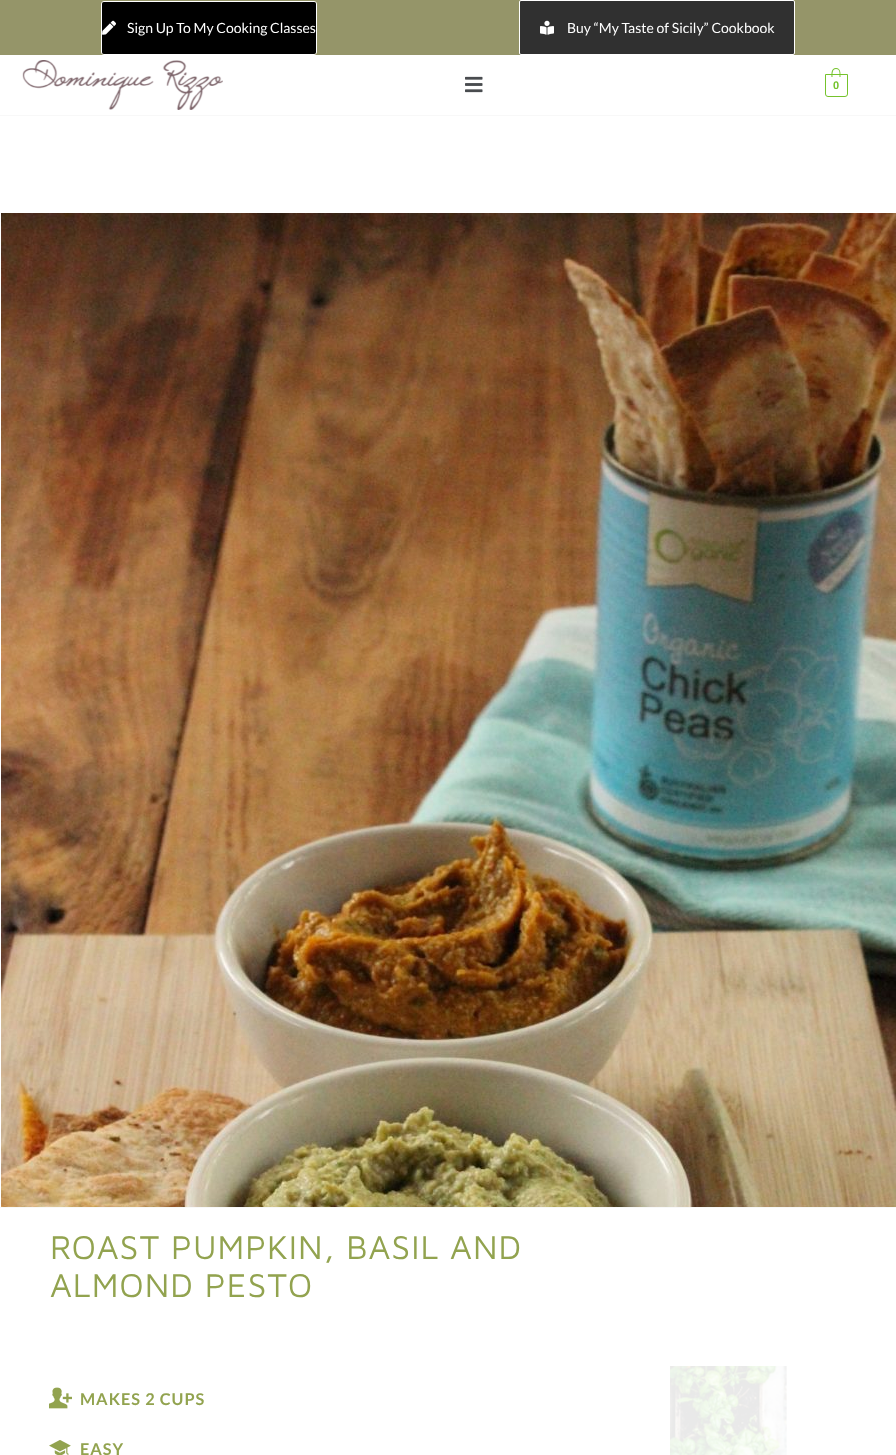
<!DOCTYPE html>
<meta charset="utf-8">
<style>body { margin: 0 } canvas { display: block }</style>
<canvas id="canvas" width="896" height="1455"></canvas>
<script type="module">
  const canvas = document.getElementById("canvas");
  const ctx = canvas.getContext("2d");
  ctx.miterLimit = 4;
  ctx.fontKerning = "normal";
  async function loadImage(src) {
    const img = new Image();
    img.src = src;
    await img.decode();
    return img;
  }

  ctx.fillStyle = "#ffffff";
  ctx.fillRect(0, 0, 896, 1455);
  ctx.fillStyle = "#959569";
  ctx.fillRect(0, 0, 896, 55);
  ctx.beginPath();
  ctx.roundRect(101.5, 1.5, 215, 53, 2.5);
  ctx.strokeStyle = "#ffffff";
  ctx.stroke();
  ctx.fillStyle = "#000000";
  ctx.beginPath();
  ctx.roundRect(102, 2, 214, 52, 2);
  ctx.fill();
  ctx.drawImage(await loadImage("img1.png"), 102, 20, 14, 15);
  ctx.font = "14px Lato";
  ctx.fillStyle = "#ffffff";
  ctx.fillText("Sign Up To My Cooking Classes", 127, 33);
  ctx.fillStyle = "#303030";
  ctx.beginPath();
  ctx.roundRect(519.5, 0.5, 275, 54, 1.5);
  ctx.fill();
  ctx.stroke();
  ctx.drawImage(await loadImage("img2.png"), 540, 20, 14, 15);
  ctx.fillStyle = "#ffffff";
  ctx.fillText("Buy “My Taste of Sicily” Cookbook", 567, 33);
  ctx.drawImage(await loadImage("img3.png"), 22, 60, 201, 50);
  ctx.drawImage(await loadImage("img4.png"), 465, 76, 18, 17);
  ctx.beginPath();
  ctx.roundRect(825.5, 74.5, 22, 22, [0, 0, 2.5, 2.5]);
  ctx.strokeStyle = "#75c32c";
  ctx.stroke();
  ctx.fillStyle = "#75c32c";
  ctx.beginPath();
  ctx.moveTo(836, 68);
  ctx.bezierCurveTo(841, 68, 840.5, 73.5, 840.5, 77);
  ctx.lineTo(831.5, 77);
  ctx.bezierCurveTo(831.5, 73.5, 831, 68, 836, 68);
  ctx.closePath();
  ctx.moveTo(836, 69);
  ctx.bezierCurveTo(840.5, 69, 839.5, 74, 839.5, 77);
  ctx.lineTo(832.5, 77);
  ctx.bezierCurveTo(832.5, 74, 832, 69, 836, 69);
  ctx.closePath();
  ctx.fill("evenodd");
  ctx.font = "bold 11px Liberation Sans";
  ctx.fillText("0", 833, 89);
  ctx.drawImage(await loadImage("img5.png"), 1, 213, 895, 994);
  ctx.fillStyle = "#f8f8f8";
  ctx.fillRect(0, 115, 896, 1);
  ctx.fillRect(0, 1207, 896, 1);
  ctx.letterSpacing = "1px";
  ctx.font = "34px Maven Pro";
  ctx.fillStyle = "#92a34f";
  ctx.fillText("ROAST PUMPKIN, BASIL AND", 50, 1259);
  ctx.fillText("ALMOND PESTO", 50, 1297);
  ctx.drawImage(await loadImage("img6.png"), 49, 1387, 23, 22);
  ctx.font = "bold 16.25px Lato";
  ctx.fillText("MAKES 2 CUPS", 80, 1405);
  ctx.drawImage(await loadImage("img7.png"), 49, 1440, 22, 15);
  ctx.fillText("EASY", 80, 1455);
  ctx.drawImage(await loadImage("img8.png"), 670, 1366, 117, 89);
</script>
